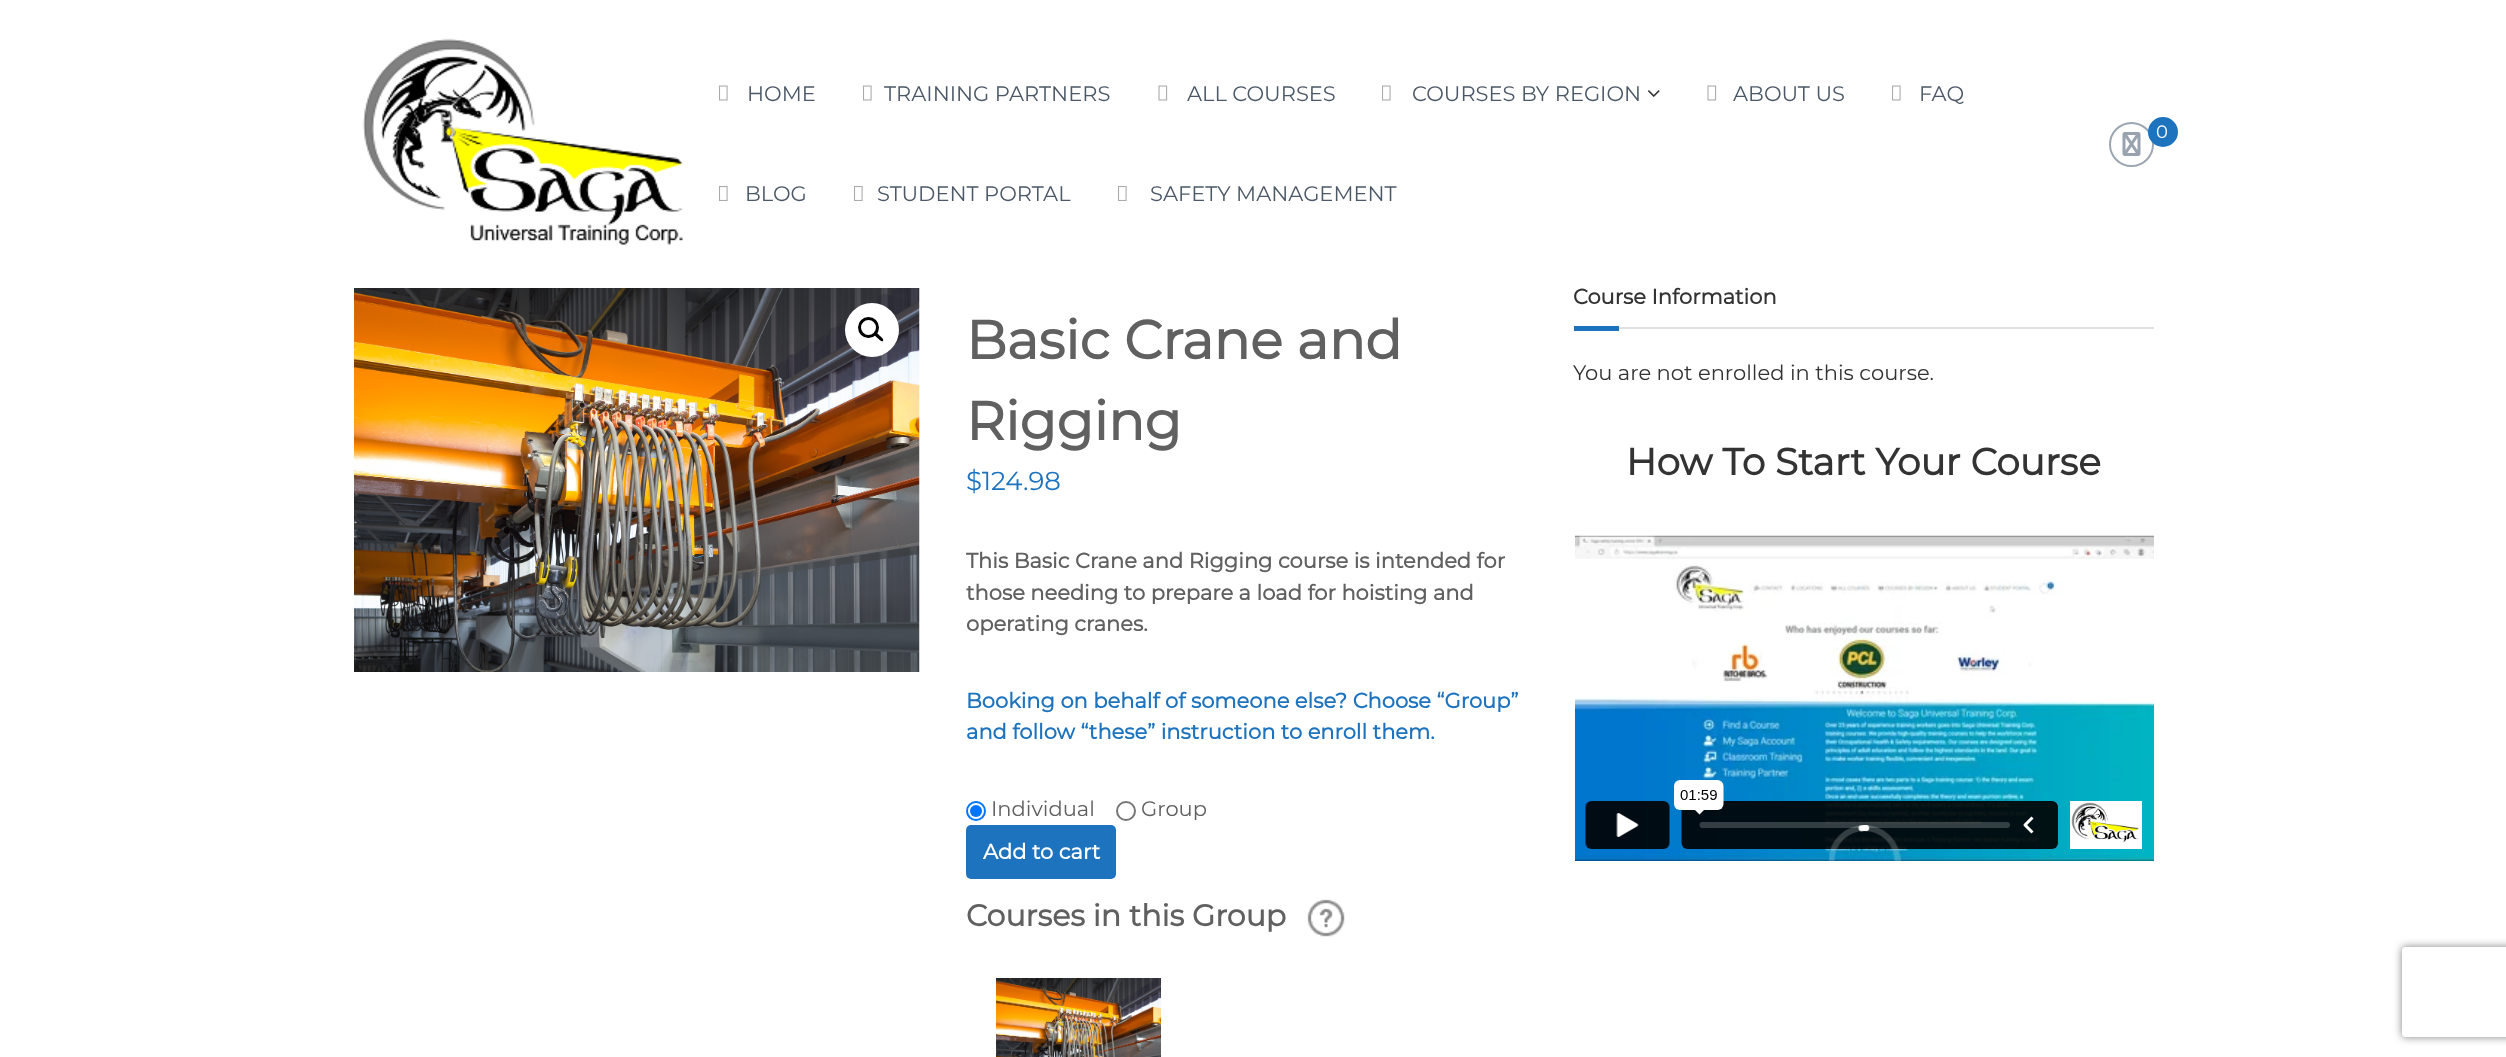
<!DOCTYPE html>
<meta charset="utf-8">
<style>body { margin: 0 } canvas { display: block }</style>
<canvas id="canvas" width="2506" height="1057"></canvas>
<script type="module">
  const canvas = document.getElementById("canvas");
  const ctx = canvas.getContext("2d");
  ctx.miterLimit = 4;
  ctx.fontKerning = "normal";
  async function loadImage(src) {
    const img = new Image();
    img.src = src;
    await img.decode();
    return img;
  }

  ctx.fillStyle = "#ffffff";
  ctx.fillRect(0, 0, 2506, 1057);
  ctx.drawImage(await loadImage("img1.png"), 362, 38, 321, 207);
  ctx.drawImage(await loadImage("img2.png"), 719, 85, 9, 16);
  ctx.font = "21px Montserrat";
  ctx.fillStyle = "#4c5867";
  ctx.fillText("HOME", 747, 101);
  ctx.drawImage(await loadImage("img2.png"), 863, 85, 9, 16);
  ctx.fillText("TRAINING PARTNERS", 884, 101);
  ctx.drawImage(await loadImage("img3.png"), 1158, 85, 10, 16);
  ctx.fillText("ALL COURSES", 1187, 101);
  ctx.drawImage(await loadImage("img2.png"), 1382, 85, 9, 16);
  ctx.fillText("COURSES BY REGION", 1412, 101);
  ctx.drawImage(await loadImage("img4.png"), 1648, 90, 12, 7);
  ctx.drawImage(await loadImage("img3.png"), 1707, 85, 10, 16);
  ctx.fillText("ABOUT US", 1733, 101);
  ctx.drawImage(await loadImage("img2.png"), 1892, 85, 9, 16);
  ctx.fillText("FAQ", 1919, 101);
  ctx.drawImage(await loadImage("img5.png"), 719, 186, 9, 15);
  ctx.fillText("BLOG", 745, 201);
  ctx.drawImage(await loadImage("img5.png"), 854, 186, 9, 15);
  ctx.fillText("STUDENT PORTAL", 877, 201);
  ctx.drawImage(await loadImage("img5.png"), 1118, 186, 9, 15);
  ctx.fillText("SAFETY MANAGEMENT", 1150, 201);
  ctx.beginPath();
  ctx.arc(2131.5, 144.5, 21.5, 0, Math.PI * 2);
  ctx.strokeStyle = "#9ca6b2";
  ctx.lineWidth = 2;
  ctx.stroke();
  ctx.drawImage(await loadImage("img6.png"), 2122, 132, 19, 24);
  ctx.fillStyle = "#1e73be";
  ctx.beginPath();
  ctx.arc(2163, 132, 15, 0, Math.PI * 2);
  ctx.fill();
  ctx.font = "18px Montserrat";
  ctx.fillStyle = "#ffffff";
  ctx.fillText("0", 2156, 138);
  ctx.drawImage(await loadImage("img7.png"), 354, 288, 566, 384);
  ctx.beginPath();
  ctx.arc(872, 330, 27, 0, Math.PI * 2);
  ctx.fill();
  ctx.beginPath();
  ctx.arc(868.5, 327.5, 9, 0, Math.PI * 2);
  ctx.strokeStyle = "#000000";
  ctx.lineWidth = 3;
  ctx.stroke();
  ctx.fillStyle = "#000000";
  ctx.beginPath();
  ctx.moveTo(874.5, 332.5);
  ctx.bezierCurveTo(876, 331, 879, 335, 879.5, 335.5);
  ctx.bezierCurveTo(880.5, 336.5, 884.5, 339.5, 883, 341);
  ctx.bezierCurveTo(881, 342.5, 878.5, 338.5, 877.5, 338);
  ctx.bezierCurveTo(876.5, 337, 872.5, 334, 874.5, 332.5);
  ctx.closePath();
  ctx.fill();
  ctx.font = "bold 54px Montserrat";
  ctx.fillStyle = "#606060";
  ctx.fillText("Basic Crane and", 966, 359);
  ctx.fillText("Rigging", 966, 440);
  ctx.font = "26px Montserrat";
  ctx.fillStyle = "#1e73be";
  ctx.fillText("$124.98", 966, 490);
  ctx.font = "bold 21px Montserrat";
  ctx.fillStyle = "#606060";
  ctx.fillText("This Basic Crane and Rigging course is intended for", 966, 568);
  ctx.fillText("those needing to prepare a load for hoisting and", 966, 600);
  ctx.fillText("operating cranes.", 966, 631);
  ctx.fillStyle = "#1e73be";
  ctx.fillText("Booking on behalf of someone else? Choose “Group”", 966, 708);
  ctx.fillText("and follow “these” instruction to enroll them.", 966, 739);
  ctx.beginPath();
  ctx.arc(976, 811, 9, 0, Math.PI * 2);
  ctx.strokeStyle = "#0075ff";
  ctx.lineWidth = 2;
  ctx.stroke();
  ctx.fillStyle = "#0075ff";
  ctx.beginPath();
  ctx.arc(976, 811, 6, 0, Math.PI * 2);
  ctx.fill();
  ctx.font = "21px Montserrat";
  ctx.fillStyle = "#606060";
  ctx.fillText("Individual", 991, 816);
  ctx.beginPath();
  ctx.arc(1126, 811, 9, 0, Math.PI * 2);
  ctx.strokeStyle = "#767676";
  ctx.stroke();
  ctx.fillText("Group", 1141, 816);
  ctx.fillStyle = "#1e73be";
  ctx.beginPath();
  ctx.roundRect(966, 825, 150, 54, 5);
  ctx.fill();
  ctx.font = "bold 21px Montserrat";
  ctx.fillStyle = "#ffffff";
  ctx.fillText("Add to cart", 983, 859);
  ctx.font = "bold 30px Montserrat";
  ctx.fillStyle = "#606060";
  ctx.fillText("Courses in this Group", 966, 926);
  ctx.drawImage(await loadImage("img8.png"), 1307, 899, 38, 38);
  ctx.drawImage(await loadImage("img9.png"), 996, 978, 165, 79);
  ctx.font = "bold 21px Montserrat";
  ctx.fillStyle = "#333333";
  ctx.fillText("Course Information", 1573, 304);
  ctx.fillStyle = "#1e73be";
  ctx.fillRect(1574, 326, 45, 5);
  ctx.fillStyle = "#e1e1e1";
  ctx.fillRect(1619, 327, 535, 2);
  ctx.font = "21px Montserrat";
  ctx.fillStyle = "#333333";
  ctx.fillText("You are not enrolled in this course.", 1573, 380);
  ctx.font = "bold 37.5px Montserrat";
  ctx.fillText("How To Start Your Course", 1626, 475);
  ctx.drawImage(await loadImage("img10.png"), 1575, 535, 579, 326);
  ctx.save();
  ctx.beginPath();
  ctx.moveTo(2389, 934);
  ctx.lineTo(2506, 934);
  ctx.lineTo(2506, 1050);
  ctx.lineTo(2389, 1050);
  ctx.closePath();
  ctx.moveTo(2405, 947);
  ctx.lineTo(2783, 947);
  ctx.bezierCurveTo(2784.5, 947, 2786, 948.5, 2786, 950);
  ctx.lineTo(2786, 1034);
  ctx.bezierCurveTo(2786, 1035.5, 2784.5, 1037, 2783, 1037);
  ctx.lineTo(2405, 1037);
  ctx.bezierCurveTo(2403.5, 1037, 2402, 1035.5, 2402, 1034);
  ctx.lineTo(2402, 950);
  ctx.bezierCurveTo(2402, 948.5, 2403.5, 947, 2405, 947);
  ctx.closePath();
  ctx.clip("evenodd");
  ctx.fillStyle = "#808080";
  ctx.filter = "blur(4px)";
  ctx.beginPath();
  ctx.roundRect(2402, 947, 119, 90, 3);
  ctx.fill();
  ctx.filter = "none";
  ctx.restore();
</script>
